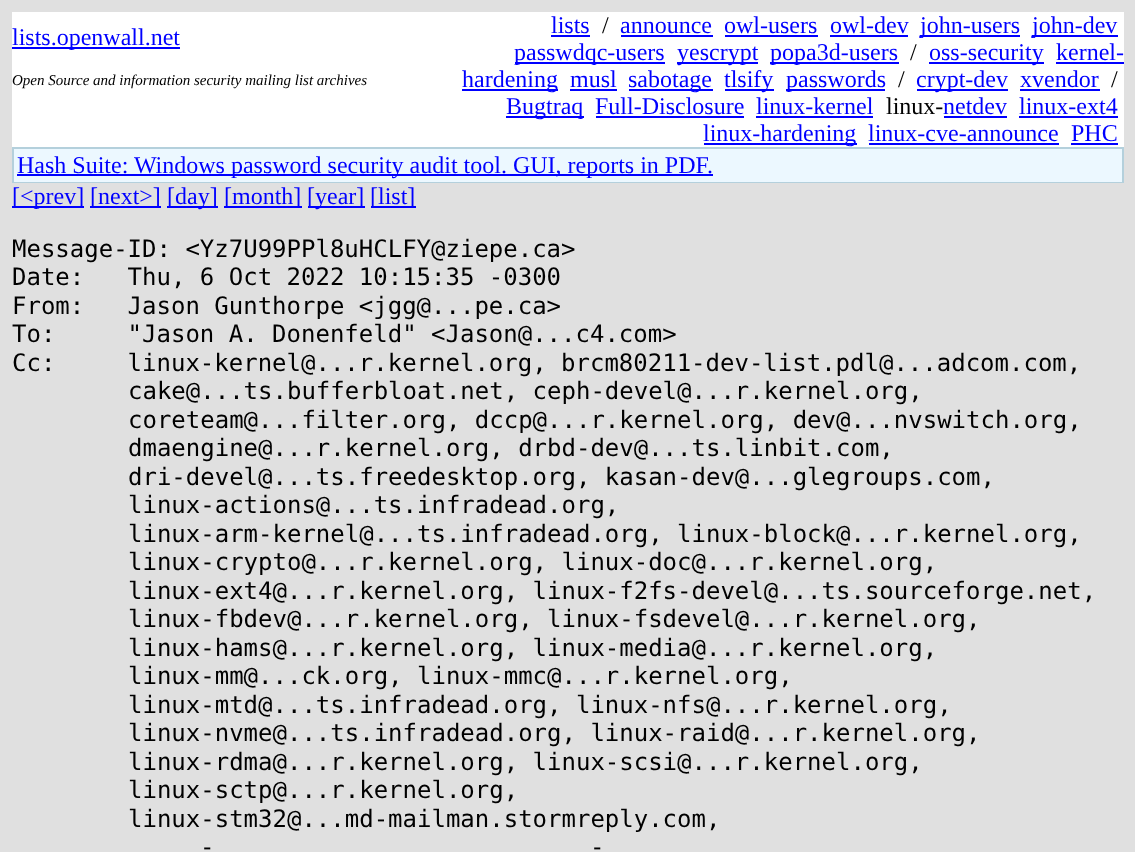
<!DOCTYPE html>
<meta charset="utf-8">
<style>body { margin: 0 } canvas { display: block }</style>
<canvas id="canvas" width="1135" height="852"></canvas>
<script type="module">
  const canvas = document.getElementById("canvas");
  const ctx = canvas.getContext("2d");
  ctx.miterLimit = 4;
  ctx.fontKerning = "normal";

  ctx.fillStyle = "#e0e0e0";
  ctx.fillRect(0, 0, 1135, 852);
  ctx.fillStyle = "#ffffff";
  ctx.fillRect(12, 12, 1112, 135);
  ctx.fillStyle = "#0000ff";
  ctx.fillRect(12, 47, 168, 2);
  ctx.font = "24px Liberation Serif";
  ctx.fillText("lists.openwall.net", 12, 45);
  ctx.fillText("lists", 551, 33);
  ctx.fillRect(551, 35, 39, 2);
  ctx.fillStyle = "#000000";
  ctx.fillText("/", 602, 33);
  ctx.fillStyle = "#0000ff";
  ctx.fillText("announce", 620, 33);
  ctx.fillRect(621, 35, 92, 2);
  ctx.fillText("owl-users", 724, 33);
  ctx.fillRect(725, 35, 93, 2);
  ctx.fillText("owl-dev", 830, 33);
  ctx.fillRect(830, 35, 78, 2);
  ctx.fillRect(920, 35, 100, 2);
  ctx.fillText("john-users", 920, 33);
  ctx.fillRect(1032, 35, 86, 2);
  ctx.fillText("john-dev", 1032, 33);
  ctx.fillRect(515, 62, 150, 2);
  ctx.fillText("passwdqc-users", 514, 60);
  ctx.fillRect(677, 62, 81, 2);
  ctx.fillText("yescrypt", 677, 60);
  ctx.fillRect(770, 62, 129, 2);
  ctx.fillText("popa3d-users", 770, 60);
  ctx.fillStyle = "#000000";
  ctx.fillText("/", 910, 60);
  ctx.fillStyle = "#0000ff";
  ctx.fillRect(929, 62, 115, 2);
  ctx.fillText("oss-security", 929, 60);
  ctx.fillText("kernel-", 1056, 60);
  ctx.fillRect(1056, 62, 68, 2);
  ctx.fillRect(462, 89, 96, 2);
  ctx.fillText("hardening", 462, 87);
  ctx.fillText("musl", 570, 87);
  ctx.fillRect(570, 89, 47, 2);
  ctx.fillRect(629, 89, 84, 2);
  ctx.fillText("sabotage", 628, 87);
  ctx.fillRect(725, 89, 49, 2);
  ctx.fillText("tlsify", 724, 87);
  ctx.fillRect(786, 89, 99, 2);
  ctx.fillText("passwords", 786, 87);
  ctx.fillStyle = "#000000";
  ctx.fillText("/", 898, 87);
  ctx.fillStyle = "#0000ff";
  ctx.fillRect(917, 89, 91, 2);
  ctx.fillText("crypt-dev", 916, 87);
  ctx.fillText("xvendor", 1020, 87);
  ctx.fillRect(1020, 89, 80, 2);
  ctx.fillStyle = "#000000";
  ctx.fillText("/", 1111, 87);
  ctx.fillStyle = "#0000ff";
  ctx.fillRect(506, 116, 78, 2);
  ctx.fillText("Bugtraq", 506, 114);
  ctx.fillText("Full-Disclosure", 595, 114);
  ctx.fillRect(596, 116, 148, 2);
  ctx.fillText("linux-kernel", 756, 114);
  ctx.fillRect(756, 116, 117, 2);
  ctx.fillStyle = "#000000";
  ctx.fillText("linux-", 886, 114);
  ctx.fillStyle = "#0000ff";
  ctx.fillText("netdev", 943, 114);
  ctx.fillRect(944, 116, 63, 2);
  ctx.fillText("linux-ext4", 1019, 114);
  ctx.fillRect(1019, 116, 99, 2);
  ctx.fillRect(704, 143, 153, 2);
  ctx.fillText("linux-hardening", 703, 141);
  ctx.fillText("linux-cve-announce", 868, 141);
  ctx.fillRect(869, 143, 190, 2);
  ctx.fillText("PHC", 1071, 141);
  ctx.fillRect(1071, 143, 47, 2);
  ctx.font = "italic 15px Liberation Serif";
  ctx.fillStyle = "#000000";
  ctx.fillText("Open Source and information security mailing list archives", 12, 85);
  ctx.fillStyle = "#b4d0dc";
  ctx.fillRect(12, 147, 1112, 36);
  ctx.fillStyle = "#ecf8ff";
  ctx.fillRect(14, 149, 1108, 33);
  ctx.fillStyle = "#0000ff";
  ctx.fillRect(17, 174, 696, 2);
  ctx.font = "24px Liberation Serif";
  ctx.fillText("Hash Suite: Windows password security audit tool. GUI, reports in PDF.", 17, 173);
  ctx.fillRect(12, 206, 72, 2);
  ctx.fillText("[<prev]", 12, 204);
  ctx.fillRect(90, 206, 71, 2);
  ctx.fillText("[next>]", 90, 204);
  ctx.fillRect(167, 206, 51, 2);
  ctx.fillText("[day]", 167, 204);
  ctx.fillRect(224, 206, 78, 2);
  ctx.fillText("[month]", 224, 204);
  ctx.fillRect(308, 206, 57, 2);
  ctx.fillText("[year]", 307, 204);
  ctx.fillRect(371, 206, 45, 2);
  ctx.fillText("[list]", 370, 204);
  ctx.font = "24px DejaVu Sans Mono";
  ctx.fillStyle = "#000000";
  ctx.fillText("Message-ID: <Yz7U99PPl8uHCLFY@ziepe.ca>", 12, 257);
  ctx.fillText("Date:   Thu, 6 Oct 2022 10:15:35 -0300", 12, 285);
  ctx.fillText("From:   Jason Gunthorpe <jgg@...pe.ca>", 12, 314);
  ctx.fillText("To:     \"Jason A. Donenfeld\" <Jason@...c4.com>", 12, 342);
  ctx.fillText("Cc:     linux-kernel@...r.kernel.org, brcm80211-dev-list.pdl@...adcom.com,", 12, 371);
  ctx.fillText("cake@...ts.bufferbloat.net, ceph-devel@...r.kernel.org,", 128, 399);
  ctx.fillText("coreteam@...filter.org, dccp@...r.kernel.org, dev@...nvswitch.org,", 128, 428);
  ctx.fillText("dmaengine@...r.kernel.org, drbd-dev@...ts.linbit.com,", 128, 456);
  ctx.fillText("dri-devel@...ts.freedesktop.org, kasan-dev@...glegroups.com,", 128, 485);
  ctx.fillText("linux-actions@...ts.infradead.org,", 128, 513);
  ctx.fillText("linux-arm-kernel@...ts.infradead.org, linux-block@...r.kernel.org,", 128, 542);
  ctx.fillText("linux-crypto@...r.kernel.org, linux-doc@...r.kernel.org,", 128, 570);
  ctx.fillText("linux-ext4@...r.kernel.org, linux-f2fs-devel@...ts.sourceforge.net,", 128, 599);
  ctx.fillText("linux-fbdev@...r.kernel.org, linux-fsdevel@...r.kernel.org,", 128, 627);
  ctx.fillText("linux-hams@...r.kernel.org, linux-media@...r.kernel.org,", 128, 656);
  ctx.fillText("linux-mm@...ck.org, linux-mmc@...r.kernel.org,", 128, 684);
  ctx.fillText("linux-mtd@...ts.infradead.org, linux-nfs@...r.kernel.org,", 128, 713);
  ctx.fillText("linux-nvme@...ts.infradead.org, linux-raid@...r.kernel.org,", 128, 741);
  ctx.fillText("linux-rdma@...r.kernel.org, linux-scsi@...r.kernel.org,", 128, 770);
  ctx.fillText("linux-sctp@...r.kernel.org,", 128, 798);
  ctx.fillText("linux-stm32@...md-mailman.stormreply.com,", 128, 827);
  ctx.fillText("-", 200, 855);
  ctx.fillText("-", 590, 855);
</script>
